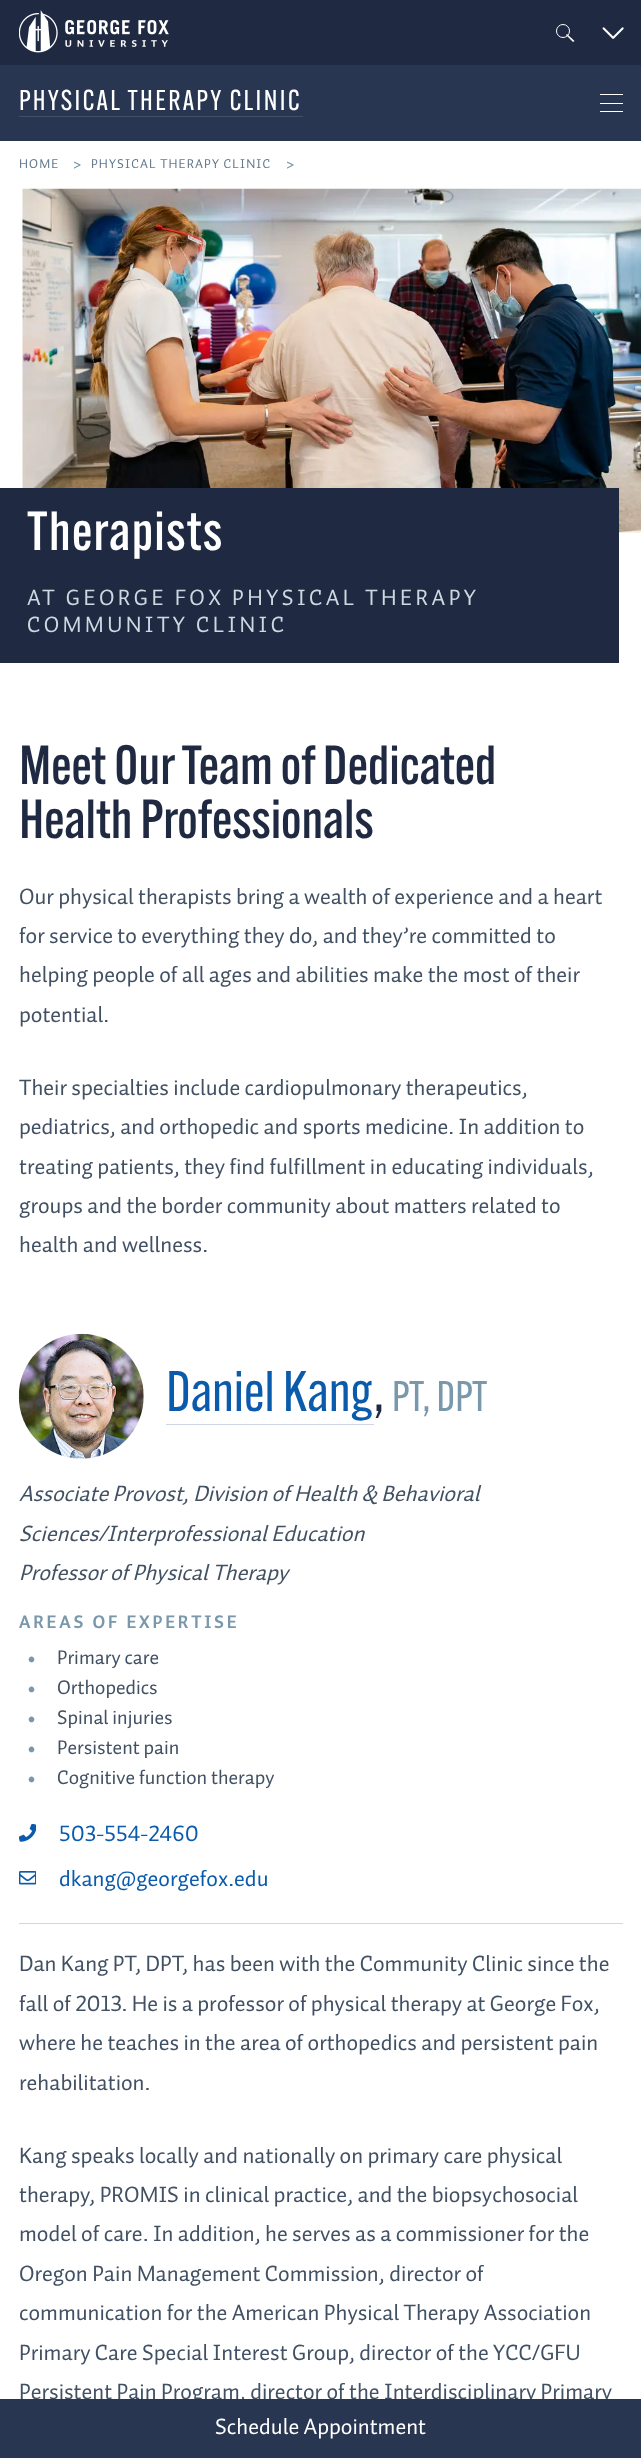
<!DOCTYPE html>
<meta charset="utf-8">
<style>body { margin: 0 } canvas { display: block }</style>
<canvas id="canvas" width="641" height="2458"></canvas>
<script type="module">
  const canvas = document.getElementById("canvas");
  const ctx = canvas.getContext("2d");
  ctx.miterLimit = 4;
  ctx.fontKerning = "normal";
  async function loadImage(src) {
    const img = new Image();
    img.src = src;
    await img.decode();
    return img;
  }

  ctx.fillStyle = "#ffffff";
  ctx.fillRect(0, 0, 641, 2458);
  ctx.fillStyle = "#1f2a42";
  ctx.fillRect(0, 0, 641, 65);
  ctx.drawImage(await loadImage("img1.png"), 19, 10, 150, 43);
  ctx.beginPath();
  ctx.arc(563, 31, 6.5, 0, Math.PI * 2);
  ctx.strokeStyle = "#ffffff";
  ctx.stroke();
  ctx.fillStyle = "#ffffff";
  ctx.beginPath();
  ctx.moveTo(567, 34);
  ctx.lineTo(574.5, 41);
  ctx.lineTo(573, 42);
  ctx.lineTo(566, 35);
  ctx.closePath();
  ctx.fill();
  ctx.drawImage(await loadImage("img2.png"), 602, 27, 22, 12);
  ctx.fillStyle = "#293652";
  ctx.fillRect(0, 65, 641, 76);
  ctx.letterSpacing = "2.25px";
  ctx.font = "28.1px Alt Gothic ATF";
  ctx.fillStyle = "#ffffff";
  ctx.fillText("PHYSICAL THERAPY CLINIC", 19, 110);
  ctx.fillStyle = "#415063";
  ctx.fillRect(19, 116, 284, 1);
  ctx.fillStyle = "#ffffff";
  ctx.fillRect(600, 94, 23, 1);
  ctx.fillRect(600, 103, 23, 1);
  ctx.fillRect(600, 111, 23, 1);
  ctx.letterSpacing = "1.1px";
  ctx.font = "13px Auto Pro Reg";
  ctx.fillStyle = "#62788c";
  ctx.fillText("HOME", 19, 168);
  ctx.letterSpacing = "-4px";
  ctx.font = "17px Auto Pro Reg";
  ctx.fillStyle = "#7998ac";
  ctx.fillText(">", 73, 169);
  ctx.letterSpacing = "1.1px";
  ctx.font = "13px Auto Pro Reg";
  ctx.fillStyle = "#62788c";
  ctx.fillText("PHYSICAL THERAPY CLINIC", 91, 168);
  ctx.letterSpacing = "-4px";
  ctx.font = "17px Auto Pro Reg";
  ctx.fillStyle = "#7998ac";
  ctx.fillText(">", 286, 169);
  ctx.drawImage(await loadImage("img3.png"), 22, 188, 619, 345);
  ctx.fillStyle = "#1f2a42";
  ctx.fillRect(0, 488, 619, 175);
  ctx.letterSpacing = "1.4px";
  ctx.font = "500 54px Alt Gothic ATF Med";
  ctx.fillStyle = "#ffffff";
  ctx.fillText("Therapists", 27, 550);
  ctx.letterSpacing = "3.4px";
  ctx.font = "22.5px Auto Pro Reg";
  ctx.fillStyle = "#cfd8e2";
  ctx.fillText("AT GEORGE FOX PHYSICAL THERAPY", 27, 605);
  ctx.fillText("COMMUNITY CLINIC", 27, 632);
  ctx.letterSpacing = "0px";
  ctx.font = "500 54px Alt Gothic ATF Med";
  ctx.fillStyle = "#1f2a42";
  ctx.fillText("Meet Our Team of Dedicated", 19, 784);
  ctx.fillText("Health Professionals", 19, 838);
  ctx.font = "22.5px Auto Pro Reg";
  ctx.fillStyle = "#415063";
  ctx.fillText("Our physical therapists bring a wealth of experience and a heart", 19, 904);
  ctx.fillText("for service to everything they do, and they’re committed to", 19, 943);
  ctx.fillText("helping people of all ages and abilities make the most of their", 19, 982);
  ctx.fillText("potential.", 19, 1022);
  ctx.fillText("Their specialties include cardiopulmonary therapeutics,", 19, 1095);
  ctx.fillText("pediatrics, and orthopedic and sports medicine. In addition to", 19, 1134);
  ctx.fillText("treating patients, they find fulfillment in educating individuals,", 19, 1174);
  ctx.fillText("groups and the border community about matters related to", 19, 1213);
  ctx.fillText("health and wellness.", 19, 1252);
  ctx.fillStyle = "#cfd8e2";
  ctx.fillRect(19, 1923, 604, 1);
  ctx.drawImage(await loadImage("img4.png"), 18, 1333, 126, 126);
  ctx.font = "56px Alt Gothic ATF";
  ctx.fillStyle = "#0b5bac";
  ctx.fillText("Daniel Kang", 166, 1411);
  ctx.fillStyle = "#cfd8e2";
  ctx.fillRect(166, 1424, 208, 1);
  ctx.fillStyle = "#1f2a42";
  ctx.fillText(",", 374, 1411);
  ctx.font = "42px Alt Gothic ATF";
  ctx.fillStyle = "#7998ac";
  ctx.fillText("PT, DPT", 392, 1411);
  ctx.font = "italic 22.5px Auto Pro Reg";
  ctx.fillStyle = "#415063";
  ctx.fillText("Associate Provost, Division of Health & Behavioral", 19, 1501);
  ctx.fillText("Sciences/Interprofessional Education", 19, 1541);
  ctx.fillText("Professor of Physical Therapy", 19, 1580);
  ctx.letterSpacing = "2.75px";
  ctx.font = "bold 18.25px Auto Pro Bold";
  ctx.fillStyle = "#7998ac";
  ctx.fillText("AREAS OF EXPERTISE", 19, 1628);
  ctx.letterSpacing = "0px";
  ctx.font = "bold 20px Liberation Sans";
  ctx.fillText("•", 28, 1666);
  ctx.font = "20px Auto Pro Reg";
  ctx.fillStyle = "#415063";
  ctx.fillText("Primary care", 57, 1664);
  ctx.font = "bold 20px Liberation Sans";
  ctx.fillStyle = "#7998ac";
  ctx.fillText("•", 28, 1696);
  ctx.font = "20px Auto Pro Reg";
  ctx.fillStyle = "#415063";
  ctx.fillText("Orthopedics", 57, 1694);
  ctx.font = "bold 20px Liberation Sans";
  ctx.fillStyle = "#7998ac";
  ctx.fillText("•", 28, 1726);
  ctx.font = "20px Auto Pro Reg";
  ctx.fillStyle = "#415063";
  ctx.fillText("Spinal injuries", 57, 1724);
  ctx.font = "bold 20px Liberation Sans";
  ctx.fillStyle = "#7998ac";
  ctx.fillText("•", 28, 1756);
  ctx.font = "20px Auto Pro Reg";
  ctx.fillStyle = "#415063";
  ctx.fillText("Persistent pain", 57, 1754);
  ctx.font = "bold 20px Liberation Sans";
  ctx.fillStyle = "#7998ac";
  ctx.fillText("•", 28, 1786);
  ctx.font = "20px Auto Pro Reg";
  ctx.fillStyle = "#415063";
  ctx.fillText("Cognitive function therapy", 57, 1784);
  ctx.drawImage(await loadImage("img5.png"), 19, 1824, 17, 18);
  ctx.font = "22.5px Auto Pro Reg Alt";
  ctx.fillStyle = "#0b5bac";
  ctx.fillText("503-554-2460", 59, 1841);
  ctx.drawImage(await loadImage("img6.png"), 19, 1871, 17, 14);
  ctx.font = "22.5px Auto Pro Reg";
  ctx.fillText("dkang@georgefox.edu", 59, 1886);
  ctx.fillStyle = "#415063";
  ctx.fillText("Dan Kang PT, DPT, has been with the Community Clinic since the", 19, 1971);
  ctx.font = "22.5px Auto Pro Reg Alt";
  ctx.fillText("fall of 2013. He is a professor of physical therapy at George Fox,", 19, 2011);
  ctx.font = "22.5px Auto Pro Reg";
  ctx.fillText("where he teaches in the area of orthopedics and persistent pain", 19, 2050);
  ctx.fillText("rehabilitation.", 19, 2090);
  ctx.fillText("Kang speaks locally and nationally on primary care physical", 19, 2163);
  ctx.fillText("therapy, PROMIS in clinical practice, and the biopsychosocial", 19, 2202);
  ctx.fillText("model of care. In addition, he serves as a commissioner for the", 19, 2241);
  ctx.fillText("Oregon Pain Management Commission, director of", 19, 2281);
  ctx.fillText("communication for the American Physical Therapy Association", 19, 2320);
  ctx.fillText("Primary Care Special Interest Group, director of the YCC/GFU", 19, 2360);
  ctx.fillText("Persistent Pain Program, director of the Interdisciplinary Primary", 19, 2399);
  ctx.fillStyle = "#293652";
  ctx.fillRect(0, 2399, 641, 59);
  ctx.fillStyle = "#ffffff";
  ctx.fillText("Schedule Appointment", 215, 2434);
</script>
